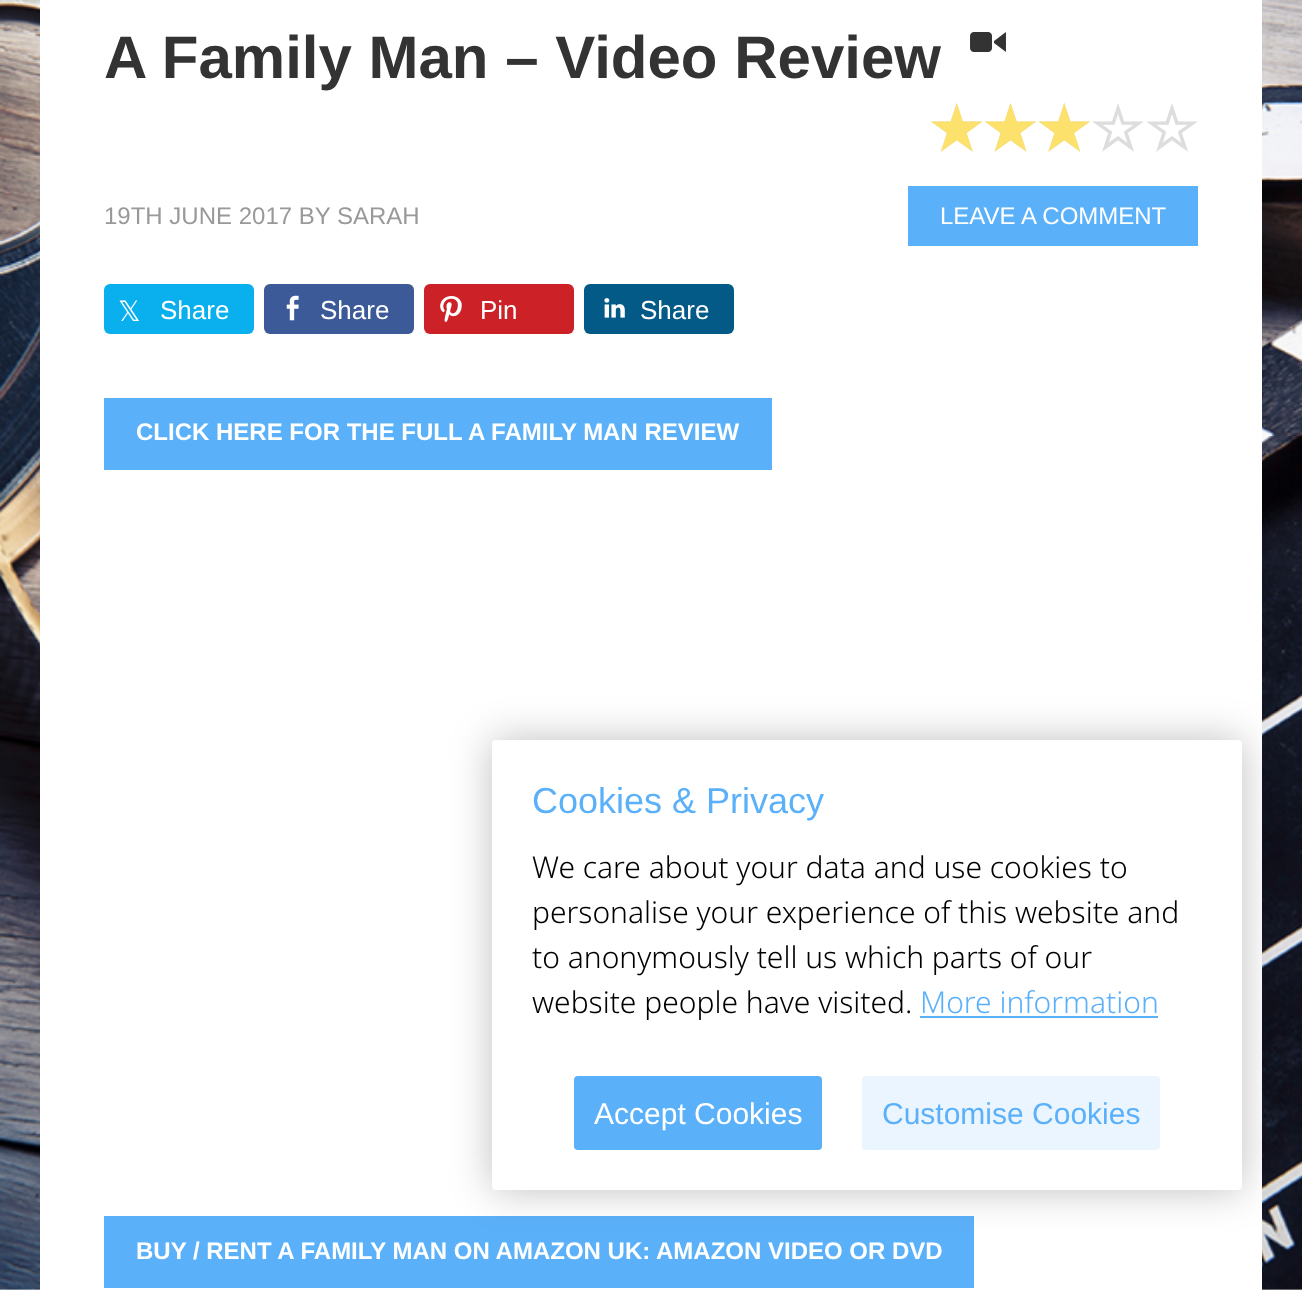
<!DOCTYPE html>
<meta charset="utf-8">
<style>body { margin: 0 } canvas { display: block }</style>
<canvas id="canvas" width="1302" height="1290"></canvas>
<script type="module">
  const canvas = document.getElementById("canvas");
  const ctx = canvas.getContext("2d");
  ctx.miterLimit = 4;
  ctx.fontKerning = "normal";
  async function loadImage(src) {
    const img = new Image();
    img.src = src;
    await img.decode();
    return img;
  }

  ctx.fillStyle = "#ffffff";
  ctx.fillRect(0, 0, 1302, 1290);
  ctx.drawImage(await loadImage("img1.png"), 0, 0, 1302, 1290);
  ctx.fillRect(40, 0, 1222, 1290);
  ctx.font = "bold 60px Liberation Sans";
  ctx.fillStyle = "#333333";
  ctx.fillText("A Family Man – Video Review", 104, 78);
  ctx.drawImage(await loadImage("img2.png"), 970, 32, 36, 20);
  ctx.font = "bold 60px DejaVu Sans";
  ctx.fillStyle = "#dddddd";
  ctx.fillText("☆☆☆☆☆", 929, 150);
  ctx.fillStyle = "#fde16d";
  ctx.fillText("★★★", 929, 150);
  ctx.font = "24px Liberation Sans";
  ctx.fillStyle = "#999999";
  ctx.fillText("19TH JUNE 2017 BY SARAH", 104, 224);
  ctx.fillStyle = "#5bb1f9";
  ctx.fillRect(908, 186, 290, 60);
  ctx.fillStyle = "#ffffff";
  ctx.fillText("LEAVE A COMMENT", 940, 224);
  ctx.fillStyle = "#09b0ed";
  ctx.beginPath();
  ctx.roundRect(104, 284, 150, 50, 6);
  ctx.fill();
  ctx.font = "28px DejaVu Sans";
  ctx.fillStyle = "#ffffff";
  ctx.fillText("𝕏", 118, 321);
  ctx.font = "26px Liberation Sans";
  ctx.fillText("Share", 160, 319);
  ctx.fillStyle = "#3d5a98";
  ctx.beginPath();
  ctx.roundRect(264, 284, 150, 50, 6);
  ctx.fill();
  ctx.drawImage(await loadImage("img3.png"), 286, 295, 13, 26);
  ctx.fillStyle = "#ffffff";
  ctx.fillText("Share", 320, 319);
  ctx.fillStyle = "#cb2127";
  ctx.beginPath();
  ctx.roundRect(424, 284, 150, 50, 6);
  ctx.fill();
  ctx.drawImage(await loadImage("img4.png"), 440, 296, 22, 26);
  ctx.fillStyle = "#ffffff";
  ctx.fillText("Pin", 480, 319);
  ctx.fillStyle = "#035a87";
  ctx.beginPath();
  ctx.roundRect(584, 284, 150, 50, 6);
  ctx.fill();
  ctx.drawImage(await loadImage("img5.png"), 604, 298, 21, 20);
  ctx.fillStyle = "#ffffff";
  ctx.fillText("Share", 640, 319);
  ctx.fillStyle = "#5bb1f9";
  ctx.fillRect(104, 398, 668, 72);
  ctx.font = "bold 24px Liberation Sans";
  ctx.fillStyle = "#ffffff";
  ctx.fillText("CLICK HERE FOR THE FULL A FAMILY MAN REVIEW", 136, 440);
  ctx.fillStyle = "#5bb1f9";
  ctx.fillRect(104, 1216, 870, 72);
  ctx.fillStyle = "#ffffff";
  ctx.fillText("BUY / RENT A FAMILY MAN ON AMAZON UK: AMAZON VIDEO OR DVD", 136, 1259);
  ctx.fillStyle = "rgba(0, 0, 0, 0.25)";
  ctx.filter = "blur(20px)";
  ctx.beginPath();
  ctx.roundRect(492, 740, 750, 450, 4);
  ctx.fill();
  ctx.filter = "none";
  ctx.fillStyle = "#ffffff";
  ctx.beginPath();
  ctx.roundRect(492, 740, 750, 450, 4);
  ctx.fill();
  ctx.font = "36px Liberation Sans";
  ctx.fillStyle = "#5bb1f9";
  ctx.fillText("Cookies & Privacy", 532, 813);
  ctx.font = "300 30px Noto Sans";
  ctx.fillStyle = "#000000";
  ctx.fillText("We care about your data and use cookies to", 532, 878);
  ctx.fillText("personalise your experience of this website and", 532, 923);
  ctx.fillText("to anonymously tell us which parts of our", 532, 968);
  ctx.fillText("website people have visited.", 532, 1013);
  ctx.fillStyle = "#5bb1f9";
  ctx.fillText("More information", 920, 1013);
  ctx.fillRect(920, 1016, 238, 2);
  ctx.beginPath();
  ctx.roundRect(574, 1076, 248, 74, 4);
  ctx.fill();
  ctx.font = "30px Liberation Sans";
  ctx.fillStyle = "#ffffff";
  ctx.fillText("Accept Cookies", 594, 1124);
  ctx.fillStyle = "#eaf5ff";
  ctx.beginPath();
  ctx.roundRect(862, 1076, 298, 74, 4);
  ctx.fill();
  ctx.fillStyle = "#5bb1f9";
  ctx.fillText("Customise Cookies", 882, 1124);
</script>
